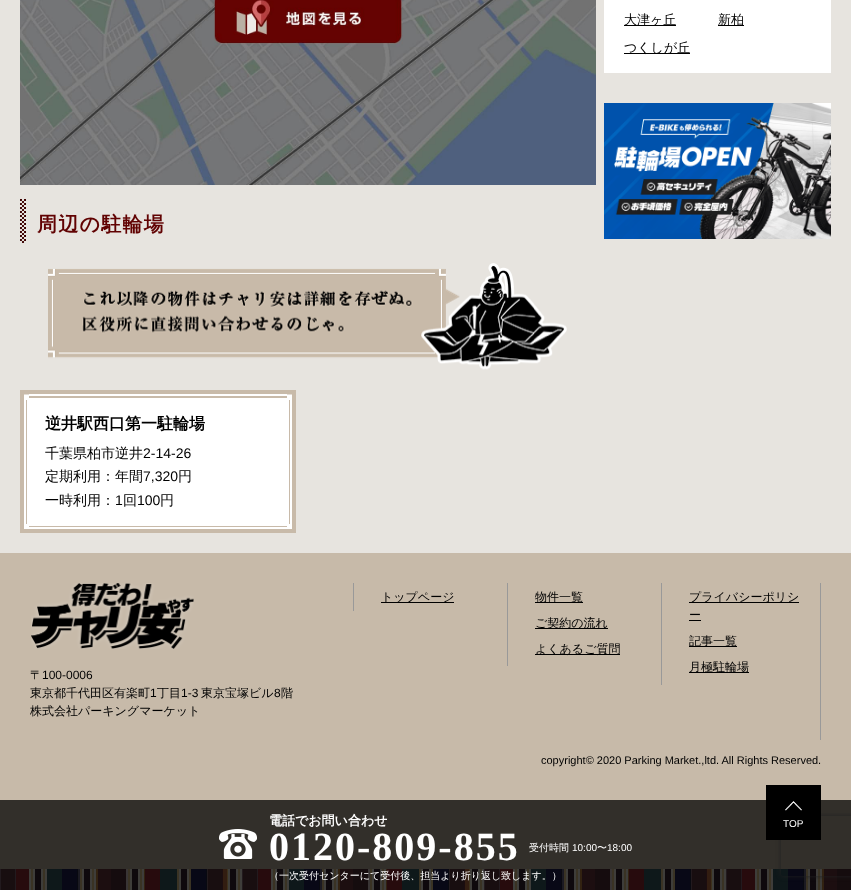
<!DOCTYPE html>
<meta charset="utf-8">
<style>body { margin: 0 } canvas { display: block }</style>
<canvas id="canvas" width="851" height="890"></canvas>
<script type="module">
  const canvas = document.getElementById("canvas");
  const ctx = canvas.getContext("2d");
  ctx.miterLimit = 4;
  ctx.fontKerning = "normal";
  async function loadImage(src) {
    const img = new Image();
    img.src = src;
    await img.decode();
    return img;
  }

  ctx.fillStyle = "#e7e4df";
  ctx.fillRect(0, 0, 851, 890);
  ctx.fillStyle = "#ffffff";
  ctx.fillRect(604, 0, 227, 73);
  ctx.fillStyle = "#000000";
  ctx.fillRect(624, 25, 52, 1);
  ctx.font = "500 13px WenQuanYi Zen Hei";
  ctx.fillText("大津ヶ丘", 624, 24);
  ctx.fillRect(718, 25, 26, 1);
  ctx.fillText("新柏", 718, 24);
  ctx.fillRect(624, 53, 66, 1);
  ctx.fillText("つくしが丘", 624, 52);
  ctx.drawImage(await loadImage("img1.png"), 604, 103, 227, 136);
  ctx.drawImage(await loadImage("img2.png"), 20, 0, 576, 185);
  ctx.drawImage(await loadImage("img3.png"), 20, 199, 6, 44);
  ctx.letterSpacing = "1.25px";
  ctx.font = "bold 20px WenQuanYi Zen Hei";
  ctx.fillStyle = "#610202";
  ctx.fillText("周辺の駐輪場", 37, 231);
  ctx.drawImage(await loadImage("img4.png"), 48, 263, 519, 107);
  ctx.fillStyle = "#ffffff";
  ctx.fillRect(29, 398, 258, 126);
  ctx.drawImage(await loadImage("img5.png"), 20, 390, 276, 143);
  ctx.letterSpacing = "0px";
  ctx.font = "bold 16px WenQuanYi Zen Hei";
  ctx.fillStyle = "#000000";
  ctx.fillText("逆井駅西口第一駐輪場", 45, 429);
  ctx.font = "500 14px WenQuanYi Zen Hei";
  ctx.fillText("千葉県柏市逆井", 45, 458);
  ctx.font = "14px Liberation Sans";
  ctx.fillText("2-14-26", 143, 458);
  ctx.font = "500 14px WenQuanYi Zen Hei";
  ctx.fillText("定期利用：年間", 45, 481);
  ctx.font = "14px Liberation Sans";
  ctx.fillText("7,320", 143, 481);
  ctx.font = "500 14px WenQuanYi Zen Hei";
  ctx.fillText("円", 178, 481);
  ctx.fillText("一時利用：", 45, 505);
  ctx.font = "14px Liberation Sans";
  ctx.fillText("1", 115, 505);
  ctx.font = "500 14px WenQuanYi Zen Hei";
  ctx.fillText("回", 123, 505);
  ctx.font = "14px Liberation Sans";
  ctx.fillText("100", 137, 505);
  ctx.font = "500 14px WenQuanYi Zen Hei";
  ctx.fillText("円", 160, 505);
  ctx.fillStyle = "#c7baa9";
  ctx.fillRect(0, 553, 851, 247);
  ctx.fillStyle = "#322f2a";
  ctx.fillRect(0, 800, 851, 69);
  ctx.drawImage(await loadImage("img6.png"), 0, 869, 851, 21);
  ctx.fillStyle = "#999999";
  ctx.fillRect(820, 583, 1, 157);
  ctx.fillRect(353, 583, 1, 28);
  ctx.fillStyle = "#000000";
  ctx.fillRect(381, 602, 73, 1);
  ctx.font = "500 12px WenQuanYi Zen Hei";
  ctx.fillText("トップページ", 381, 601);
  ctx.fillStyle = "#999999";
  ctx.fillRect(507, 583, 1, 83);
  ctx.fillStyle = "#000000";
  ctx.fillRect(535, 602, 48, 1);
  ctx.fillText("物件一覧", 535, 601);
  ctx.fillRect(535, 628, 73, 1);
  ctx.fillText("ご契約の流れ", 535, 627);
  ctx.fillRect(535, 654, 85, 1);
  ctx.fillText("よくあるご質問", 535, 653);
  ctx.fillStyle = "#999999";
  ctx.fillRect(661, 583, 1, 102);
  ctx.fillStyle = "#000000";
  ctx.fillRect(689, 602, 110, 1);
  ctx.fillText("プライバシーポリシ", 689, 601);
  ctx.fillText("ー", 689, 619);
  ctx.fillRect(689, 620, 12, 1);
  ctx.fillRect(689, 646, 48, 1);
  ctx.fillText("記事一覧", 689, 645);
  ctx.fillRect(689, 672, 60, 1);
  ctx.fillText("月極駐輪場", 689, 671);
  ctx.drawImage(await loadImage("img7.png"), 31, 583, 163, 66);
  ctx.fillText("〒", 30, 679);
  ctx.font = "12px Liberation Sans";
  ctx.fillText("100-0006", 42, 679);
  ctx.font = "500 12px WenQuanYi Zen Hei";
  ctx.fillText("東京都千代田区有楽町", 30, 697);
  ctx.font = "12px Liberation Sans";
  ctx.fillText("1", 150, 697);
  ctx.font = "500 12px WenQuanYi Zen Hei";
  ctx.fillText("丁目", 157, 697);
  ctx.font = "12px Liberation Sans";
  ctx.fillText("1-3", 181, 697);
  ctx.font = "500 12px WenQuanYi Zen Hei";
  ctx.fillText("東京宝塚ビル", 201, 697);
  ctx.font = "12px Liberation Sans";
  ctx.fillText("8", 274, 697);
  ctx.font = "500 12px WenQuanYi Zen Hei";
  ctx.fillText("階", 281, 697);
  ctx.fillText("株式会社パーキングマーケット", 30, 715);
  ctx.font = "11px Liberation Sans";
  ctx.fillText("copyright© 2020 Parking Market.,ltd. All Rights Reserved.", 541, 764);
  ctx.drawImage(await loadImage("img8.png"), 219, 829, 38, 30);
  ctx.font = "bold 13px WenQuanYi Zen Hei";
  ctx.fillStyle = "#ffffff";
  ctx.fillText("電話でお問い合わせ", 269, 825);
  ctx.letterSpacing = "2px";
  ctx.font = "bold 40px Liberation Serif";
  ctx.fillText("0120-809-855", 269, 860);
  ctx.letterSpacing = "0px";
  ctx.font = "500 10px WenQuanYi Zen Hei";
  ctx.fillText("受付時間", 529, 851);
  ctx.font = "10px Liberation Sans";
  ctx.fillText("10:00", 572, 851);
  ctx.font = "500 10px WenQuanYi Zen Hei";
  ctx.fillText("〜", 597, 851);
  ctx.font = "10px Liberation Sans";
  ctx.fillText("18:00", 607, 851);
  ctx.font = "500 10px WenQuanYi Zen Hei";
  ctx.fillText("（一次受付センターにて受付後、担当より折り返し致します。）", 269, 879);
  ctx.save();
  ctx.beginPath();
  ctx.moveTo(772, 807);
  ctx.lineTo(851, 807);
  ctx.lineTo(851, 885);
  ctx.lineTo(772, 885);
  ctx.closePath();
  ctx.moveTo(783, 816);
  ctx.lineTo(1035, 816);
  ctx.bezierCurveTo(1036, 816, 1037, 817, 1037, 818);
  ctx.lineTo(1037, 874);
  ctx.bezierCurveTo(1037, 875, 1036, 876, 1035, 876);
  ctx.lineTo(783, 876);
  ctx.bezierCurveTo(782, 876, 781, 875, 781, 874);
  ctx.lineTo(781, 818);
  ctx.bezierCurveTo(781, 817, 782, 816, 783, 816);
  ctx.closePath();
  ctx.clip("evenodd");
  ctx.fillStyle = "#202020";
  ctx.filter = "blur(2.5px)";
  ctx.beginPath();
  ctx.roundRect(781, 816, 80, 60, 2);
  ctx.fill();
  ctx.filter = "none";
  ctx.restore();
  ctx.fillStyle = "#000000";
  ctx.fillRect(766, 785, 55, 55);
  ctx.drawImage(await loadImage("img9.png"), 785, 801, 17, 10);
  ctx.font = "10px Liberation Sans";
  ctx.fillStyle = "#ffffff";
  ctx.fillText("TOP", 783, 827);
</script>
